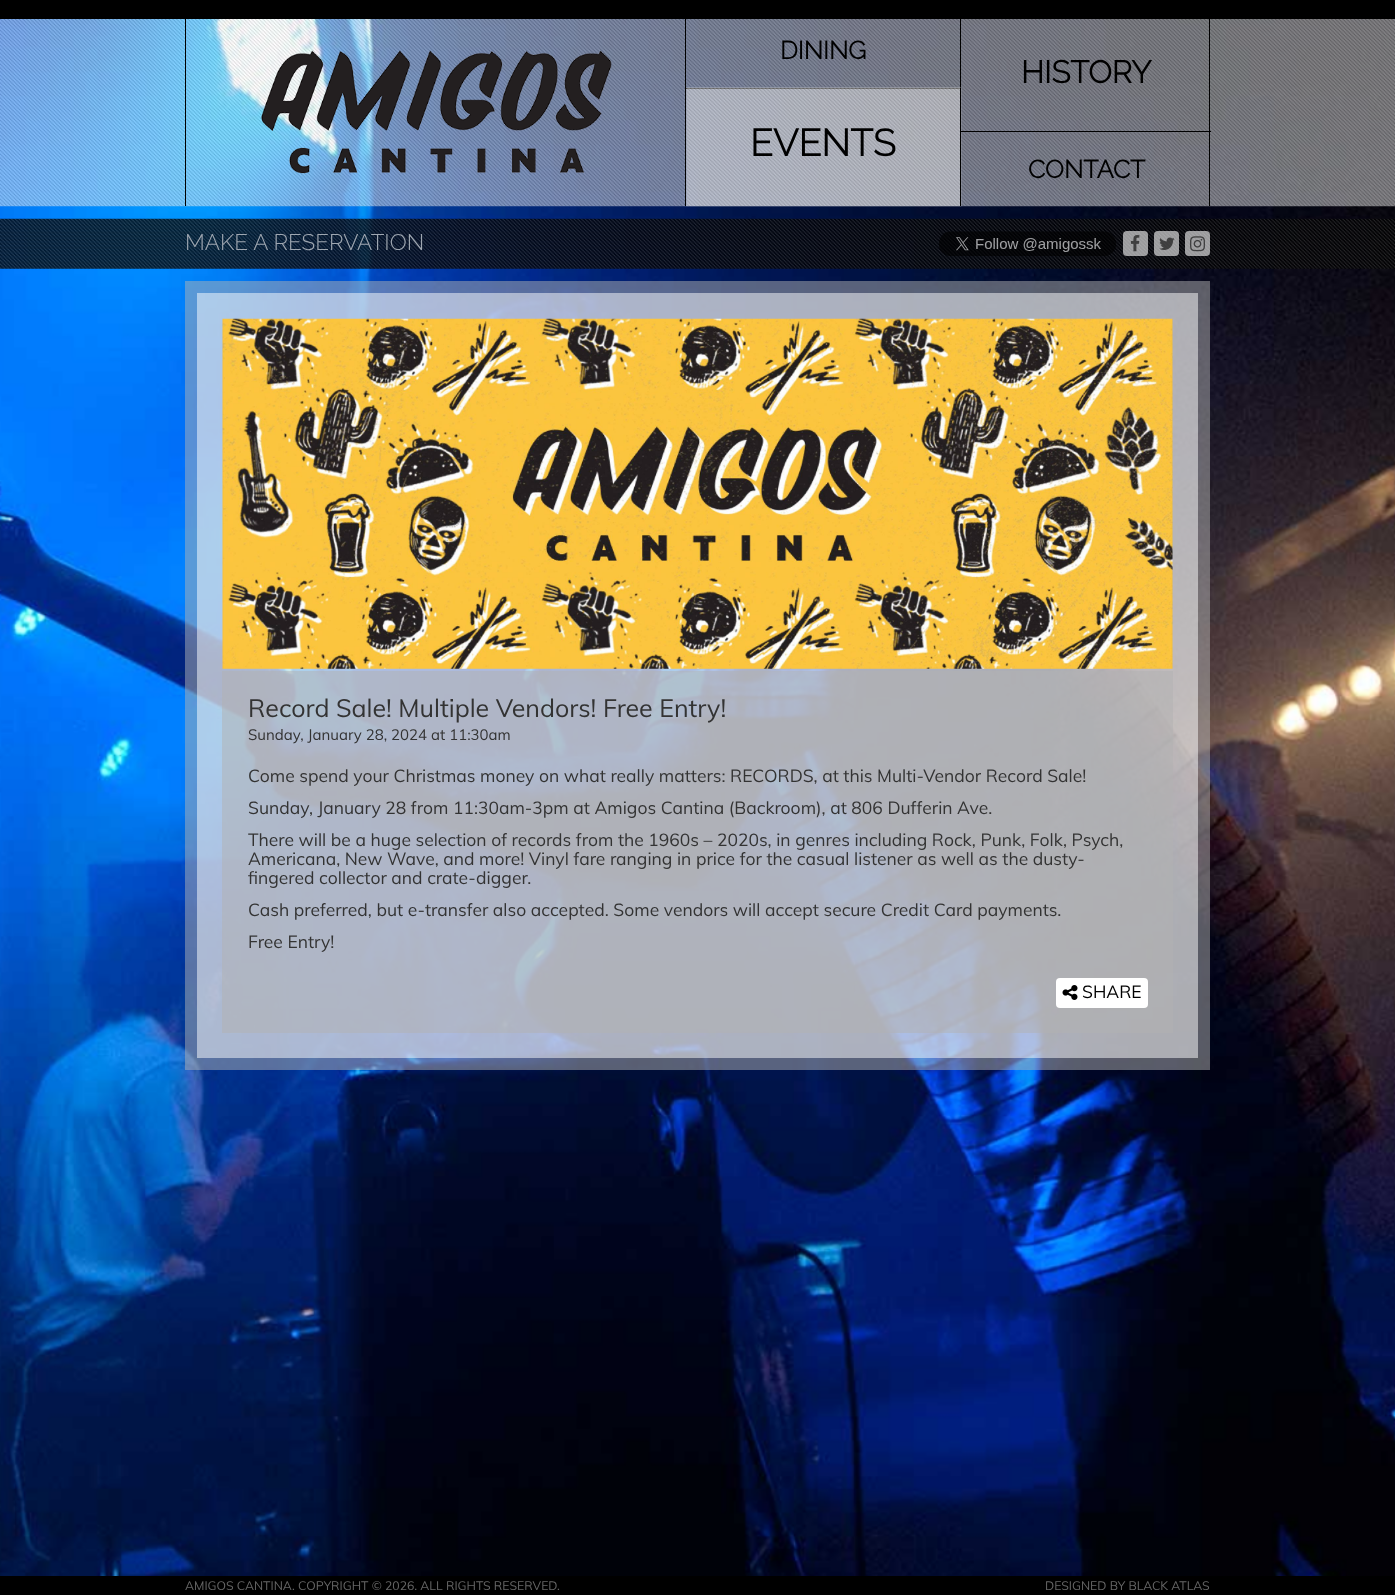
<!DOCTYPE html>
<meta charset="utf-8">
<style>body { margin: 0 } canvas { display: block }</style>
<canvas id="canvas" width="1395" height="1595"></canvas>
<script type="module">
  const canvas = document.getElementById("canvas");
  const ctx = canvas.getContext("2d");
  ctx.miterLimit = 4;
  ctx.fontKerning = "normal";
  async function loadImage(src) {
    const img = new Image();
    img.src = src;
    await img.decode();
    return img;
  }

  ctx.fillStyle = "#ffffff";
  ctx.fillRect(0, 0, 1395, 1595);
  ctx.drawImage(await loadImage("img9.png"), 0, 19, 1395, 1557);
  ctx.drawImage(await loadImage("img1.png"), 0, 19, 1395, 188);
  ctx.fillStyle = "#000000";
  ctx.fillRect(0, 0, 1395, 19);
  ctx.fillRect(1209, 19, 1, 187);
  ctx.fillRect(185, 19, 1, 187);
  ctx.fillRect(685, 19, 1, 187);
  ctx.drawImage(await loadImage("img2.png"), 261, 50, 351, 124);
  ctx.fillRect(960, 19, 1, 70);
  ctx.fillRect(686, 88, 275, 1);
  ctx.font = "bold 25px Raleway";
  ctx.fillText("DINING", 780, 59);
  ctx.drawImage(await loadImage("img3.png"), 686, 87, 276, 120);
  ctx.fillRect(961, 131, 250, 1);
  ctx.font = "bold 31.25px Raleway";
  ctx.fillText("HISTORY", 1021, 83);
  ctx.fillRect(960, 88, 1, 118);
  ctx.font = "bold 37.5px Raleway";
  ctx.fillText("EVENTS", 750, 156);
  ctx.font = "bold 25px Raleway";
  ctx.fillText("CONTACT", 1028, 178);
  ctx.drawImage(await loadImage("img4.png"), 0, 218, 1395, 51);
  ctx.font = "100 22.5px Raleway";
  ctx.fillStyle = "#9fa7b1";
  ctx.fillText("MAKE A RESERVATION", 185, 250);
  ctx.drawImage(await loadImage("img5.png"), 939, 231, 177, 25);
  ctx.fillStyle = "rgba(255, 255, 255, 0.6)";
  ctx.beginPath();
  ctx.roundRect(1123, 231, 25, 25, 4);
  ctx.fill();
  ctx.drawImage(await loadImage("img6.png"), 1130, 235, 10, 17);
  ctx.beginPath();
  ctx.roundRect(1154, 231, 25, 25, 4);
  ctx.fill();
  ctx.drawImage(await loadImage("img7.png"), 1159, 237, 16, 13);
  ctx.beginPath();
  ctx.roundRect(1185, 231, 25, 25, 4);
  ctx.fill();
  ctx.drawImage(await loadImage("img8.png"), 1190, 236, 15, 16);
  ctx.fillStyle = "rgba(177, 177, 177, 0.5)";
  ctx.fillRect(185, 281, 1025, 789);
  ctx.fillStyle = "rgba(255, 255, 255, 0.5)";
  ctx.fillRect(197, 293, 1001, 765);
  ctx.drawImage(await loadImage("img10.png"), 222, 318, 951, 351);
  ctx.fillStyle = "rgba(177, 177, 177, 0.5)";
  ctx.fillRect(222, 671, 951, 362);
  ctx.font = "25px Muli";
  ctx.fillStyle = "#333333";
  ctx.fillText("Record Sale! Multiple Vendors! Free Entry!", 248, 717);
  ctx.font = "15px Muli";
  ctx.fillText("Sunday, January 28, 2024 at 11:30am", 248, 740);
  ctx.font = "17.5px Muli";
  ctx.fillText("Come spend your Christmas money on what really matters: RECORDS, at this Multi-Vendor Record Sale!", 248, 782);
  ctx.fillText("Sunday, January 28 from 11:30am-3pm at Amigos Cantina (Backroom), at 806 Dufferin Ave.", 248, 814);
  ctx.fillText("There will be a huge selection of records from the 1960s – 2020s, in genres including Rock, Punk, Folk, Psych,", 248, 846);
  ctx.fillText("Americana, New Wave, and more! Vinyl fare ranging in price for the casual listener as well as the dusty-", 248, 865);
  ctx.fillText("fingered collector and crate-digger.", 248, 884);
  ctx.fillText("Cash preferred, but e-transfer also accepted. Some vendors will accept secure Credit Card payments.", 248, 916);
  ctx.fillText("Free Entry!", 248, 948);
  ctx.fillStyle = "#ffffff";
  ctx.beginPath();
  ctx.roundRect(1056, 978, 92, 30, 4);
  ctx.fill();
  ctx.drawImage(await loadImage("img11.png"), 1062, 985, 16, 15);
  ctx.fillStyle = "#000000";
  ctx.fillText("SHARE", 1082, 998);
  ctx.fillRect(0, 1576, 1395, 19);
  ctx.font = "12.25px Muli";
  ctx.fillStyle = "#666666";
  ctx.fillText("AMIGOS CANTINA. COPYRIGHT © 2026. ALL RIGHTS RESERVED.", 185, 1590);
  ctx.fillText("DESIGNED BY BLACK ATLAS", 1045, 1590);
</script>
